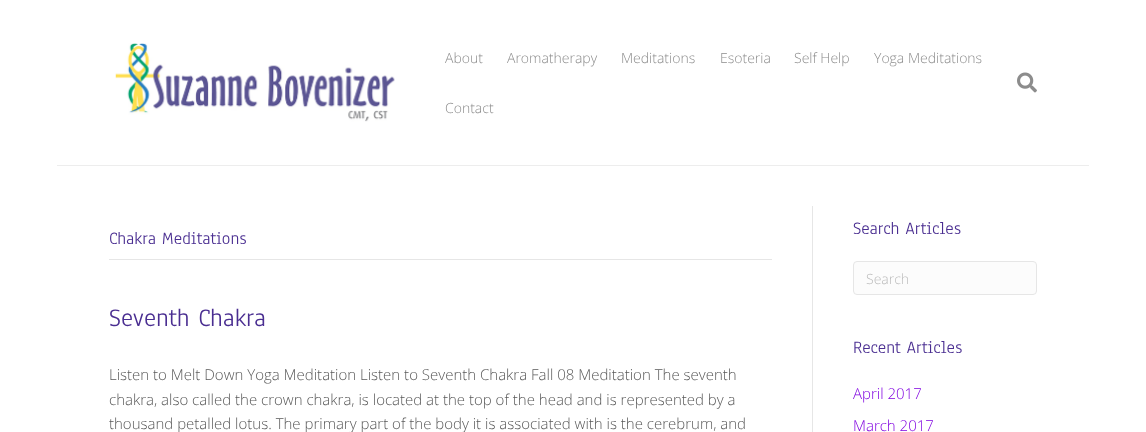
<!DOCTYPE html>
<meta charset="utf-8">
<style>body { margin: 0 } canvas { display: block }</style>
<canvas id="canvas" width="1146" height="432"></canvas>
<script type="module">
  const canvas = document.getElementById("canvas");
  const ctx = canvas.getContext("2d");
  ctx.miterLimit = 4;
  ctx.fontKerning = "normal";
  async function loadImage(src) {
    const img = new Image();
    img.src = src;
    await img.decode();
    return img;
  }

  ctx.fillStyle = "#ffffff";
  ctx.fillRect(0, 0, 1146, 432);
  ctx.fillStyle = "#ededed";
  ctx.fillRect(57, 165, 1032, 1);
  ctx.drawImage(await loadImage("img1.png"), 115, 43, 280, 79);
  ctx.font = "300 14px Open Sans";
  ctx.fillStyle = "#8c8c8c";
  ctx.fillText("About", 445, 63);
  ctx.fillText("Aromatherapy", 507, 63);
  ctx.fillText("Meditations", 621, 63);
  ctx.fillText("Esoteria", 720, 63);
  ctx.fillText("Self Help", 794, 63);
  ctx.fillText("Yoga Meditations", 874, 63);
  ctx.fillText("Contact", 445, 113);
  ctx.drawImage(await loadImage("img2.png"), 1017, 72, 20, 21);
  ctx.fillStyle = "#e6e6e6";
  ctx.fillRect(812, 206, 1, 226);
  ctx.fillRect(109, 259, 663, 1);
  ctx.font = "18px Anaheim";
  ctx.fillStyle = "#4a2e91";
  ctx.fillText("Chakra Meditations", 109, 244);
  ctx.font = "26px Anaheim";
  ctx.fillText("Seventh Chakra", 109, 326);
  ctx.font = "300 15px Open Sans";
  ctx.fillStyle = "#595959";
  ctx.fillText("Listen to Melt Down Yoga Meditation Listen to Seventh Chakra Fall 08 Meditation The seventh", 109, 380);
  ctx.fillText("chakra, also called the crown chakra, is located at the top of the head and is represented by a", 109, 405);
  ctx.fillText("thousand petalled lotus. The primary part of the body it is associated with is the cerebrum, and", 109, 429);
  ctx.font = "18px Anaheim";
  ctx.fillStyle = "#4a2e91";
  ctx.fillText("Search Articles", 853, 234);
  ctx.fillStyle = "#fcfcfc";
  ctx.beginPath();
  ctx.roundRect(853.5, 261.5, 183, 33, 3.5);
  ctx.fill();
  ctx.strokeStyle = "#e6e6e6";
  ctx.stroke();
  ctx.font = "300 14px Open Sans";
  ctx.fillStyle = "#bbbbbb";
  ctx.fillText("Search", 866, 284);
  ctx.font = "18px Anaheim";
  ctx.fillStyle = "#4a2e91";
  ctx.fillText("Recent Articles", 853, 353);
  ctx.font = "300 15px Open Sans";
  ctx.fillStyle = "#7f00e0";
  ctx.fillText("April 2017", 853, 399);
  ctx.fillText("March 2017", 853, 431);
</script>
